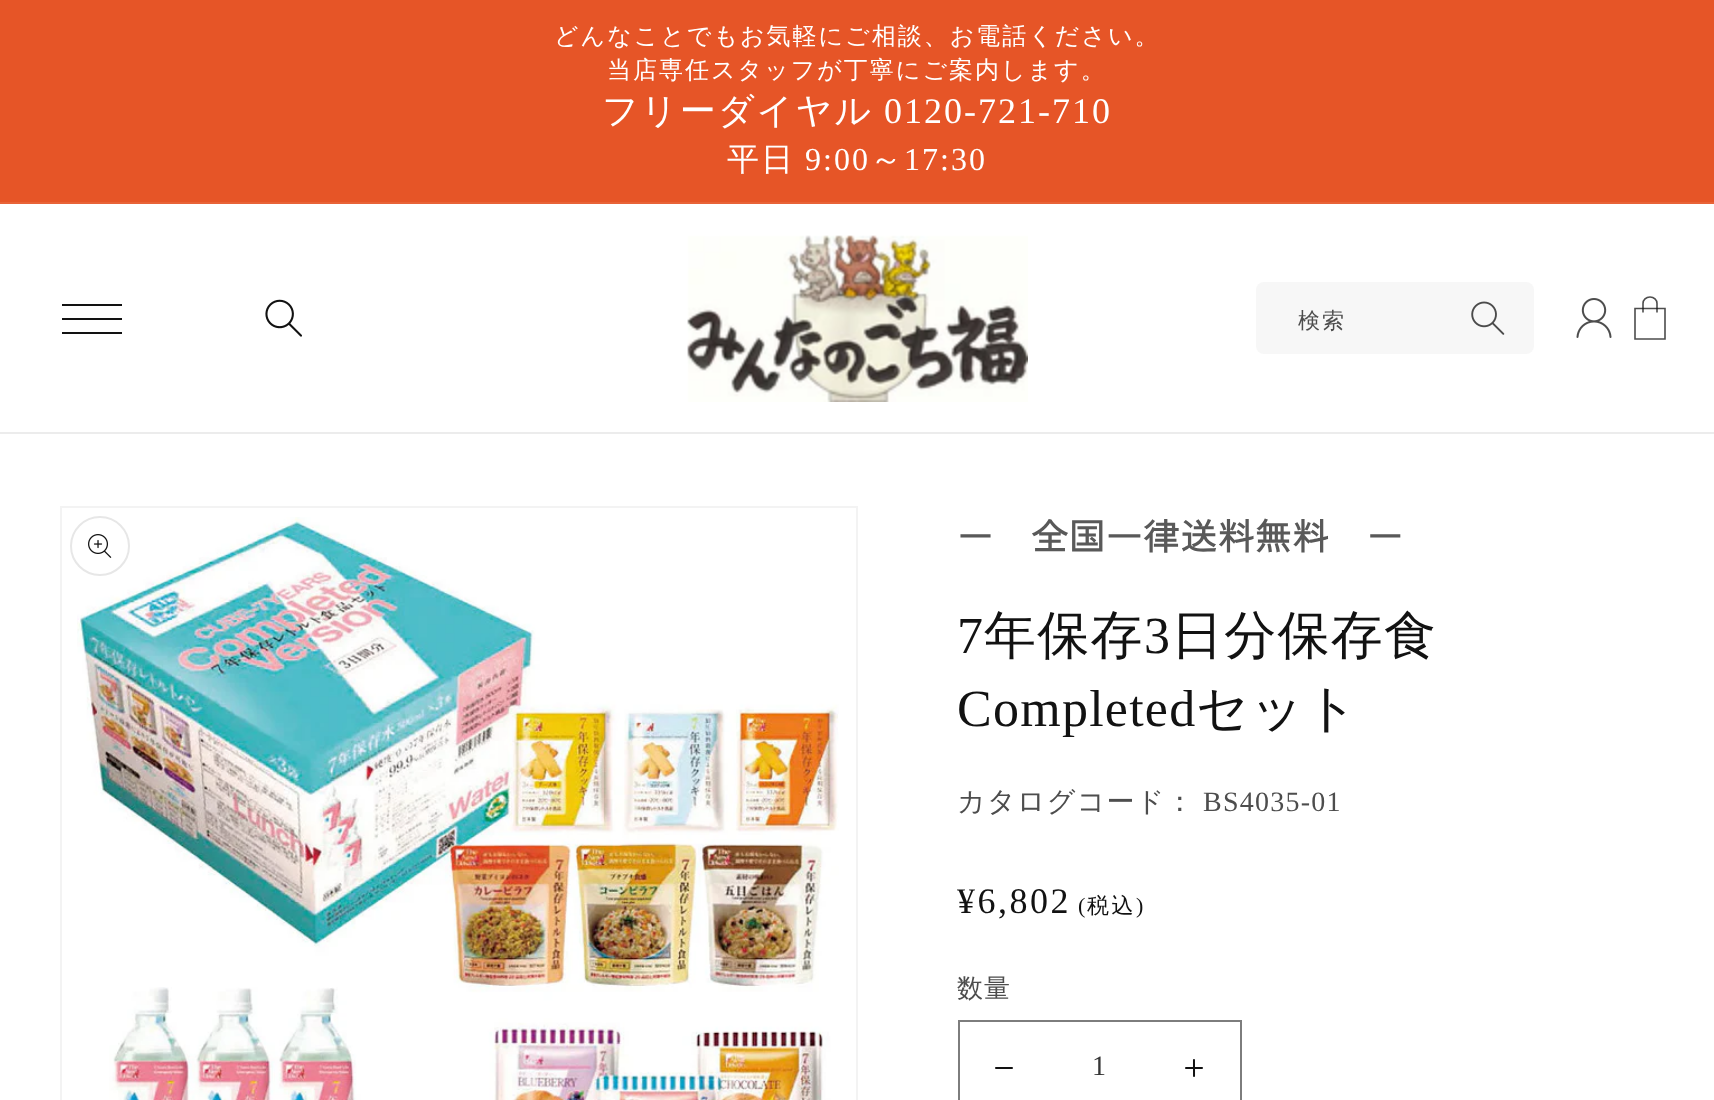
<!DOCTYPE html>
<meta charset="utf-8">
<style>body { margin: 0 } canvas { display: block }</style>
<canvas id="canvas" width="1714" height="1100"></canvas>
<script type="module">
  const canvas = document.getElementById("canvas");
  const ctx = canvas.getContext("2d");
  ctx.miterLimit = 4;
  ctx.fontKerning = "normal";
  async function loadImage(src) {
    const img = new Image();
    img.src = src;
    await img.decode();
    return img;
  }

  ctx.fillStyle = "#ffffff";
  ctx.fillRect(0, 0, 1714, 1100);
  ctx.fillStyle = "#e65527";
  ctx.fillRect(0, 0, 1714, 202);
  ctx.fillStyle = "#e86338";
  ctx.fillRect(0, 202, 1714, 2);
  ctx.letterSpacing = "2px";
  ctx.font = "500 24px WenQuanYi Zen Hei";
  ctx.fillStyle = "#ffffff";
  ctx.fillText("どんなことでもお気軽にご相談、お電話ください。", 554, 44);
  ctx.fillText("当店専任スタッフが丁寧にご案内します。", 607, 78);
  ctx.font = "500 36px WenQuanYi Zen Hei";
  ctx.fillText("フリーダイヤル", 602, 123);
  ctx.font = "36px Liberation Serif";
  ctx.fillText("0120-721-710", 884, 123);
  ctx.font = "500 32px WenQuanYi Zen Hei";
  ctx.fillText("平日", 727, 170);
  ctx.font = "32px Liberation Serif";
  ctx.fillText("9:00", 805, 170);
  ctx.font = "500 32px WenQuanYi Zen Hei";
  ctx.fillText("～", 870, 170);
  ctx.font = "32px Liberation Serif";
  ctx.fillText("17:30", 904, 170);
  ctx.fillStyle = "#ececec";
  ctx.fillRect(0, 432, 1714, 2);
  ctx.fillStyle = "#121212";
  ctx.fillRect(62, 304, 60, 2);
  ctx.fillRect(62, 318, 60, 2);
  ctx.fillRect(62, 332, 60, 2);
  ctx.drawImage(await loadImage("img1.png"), 265, 299, 37, 38);
  ctx.drawImage(await loadImage("img2.png"), 687, 235, 341, 167);
  ctx.fillStyle = "#f7f7f7";
  ctx.beginPath();
  ctx.roundRect(1256, 282, 278, 72, 8);
  ctx.fill();
  ctx.font = "500 22px WenQuanYi Zen Hei";
  ctx.fillStyle = "#4d4d4d";
  ctx.fillText("検索", 1298, 328);
  ctx.drawImage(await loadImage("img3.png"), 1471, 301, 34, 34);
  ctx.drawImage(await loadImage("img4.png"), 1576, 298, 36, 40);
  ctx.beginPath();
  ctx.moveTo(1658, 308.5);
  ctx.lineTo(1665, 308.5);
  ctx.lineTo(1665, 339);
  ctx.lineTo(1635, 339);
  ctx.lineTo(1635, 308.5);
  ctx.closePath();
  ctx.strokeStyle = "#4d4d4d";
  ctx.lineWidth = 1.6;
  ctx.stroke();
  ctx.beginPath();
  ctx.moveTo(1643, 312.5);
  ctx.lineTo(1643, 303.5);
  ctx.bezierCurveTo(1643, 300, 1646, 297, 1650, 297);
  ctx.bezierCurveTo(1654, 297, 1657, 300, 1657, 303.5);
  ctx.lineTo(1657, 312.5);
  ctx.strokeStyle = "rgba(18, 18, 18, 0.75)";
  ctx.stroke();
  ctx.strokeStyle = "#f3f3f3";
  ctx.lineWidth = 2;
  ctx.strokeRect(61, 507, 796, 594);
  ctx.drawImage(await loadImage("img5.png"), 77, 517, 762, 583);
  ctx.beginPath();
  ctx.arc(100, 546, 29, 0, Math.PI * 2);
  ctx.strokeStyle = "#e7e7e7";
  ctx.stroke();
  ctx.drawImage(await loadImage("img6.png"), 88, 534, 24, 24);
  ctx.letterSpacing = "1.25px";
  ctx.font = "bold 36px Zen Kaku Gothic New";
  ctx.fillStyle = "#595959";
  ctx.fillText("ー　全国一律送料無料　ー", 957, 550);
  ctx.font = "52px Liberation Serif";
  ctx.fillStyle = "#121212";
  ctx.fillText("7", 957, 653);
  ctx.font = "500 52px WenQuanYi Zen Hei";
  ctx.fillText("年保存", 984, 653);
  ctx.font = "52px Liberation Serif";
  ctx.fillText("3", 1144, 653);
  ctx.font = "500 52px WenQuanYi Zen Hei";
  ctx.fillText("日分保存食", 1171, 653);
  ctx.font = "52px Liberation Serif";
  ctx.fillText("Completed", 957, 726);
  ctx.font = "500 52px WenQuanYi Zen Hei";
  ctx.fillText("セット", 1196, 726);
  ctx.font = "500 28px WenQuanYi Zen Hei";
  ctx.fillStyle = "#4d4d4d";
  ctx.fillText("カタログコード：", 957, 811);
  ctx.font = "28px Liberation Serif";
  ctx.fillText("BS4035-01", 1203, 811);
  ctx.letterSpacing = "2.5px";
  ctx.font = "36px Liberation Serif";
  ctx.fillStyle = "#121212";
  ctx.fillText("¥6,802", 957, 913);
  ctx.font = "22px Liberation Serif";
  ctx.fillText("(", 1078, 913);
  ctx.font = "500 22px WenQuanYi Zen Hei";
  ctx.fillText("税込", 1087, 913);
  ctx.font = "22px Liberation Serif";
  ctx.fillText(")", 1136, 913);
  ctx.letterSpacing = "1px";
  ctx.font = "500 26px WenQuanYi Zen Hei";
  ctx.fillStyle = "#4d4d4d";
  ctx.fillText("数量", 957, 997);
  ctx.drawImage(await loadImage("img7.png"), 995, 1067, 18, 2);
  ctx.drawImage(await loadImage("img8.png"), 1185, 1059, 18, 18);
  ctx.strokeStyle = "#7d7d7d";
  ctx.strokeRect(959, 1021, 282, 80);
  ctx.letterSpacing = "0px";
  ctx.font = "28px Liberation Serif";
  ctx.fillStyle = "#363636";
  ctx.fillText("1", 1092, 1075);
</script>
